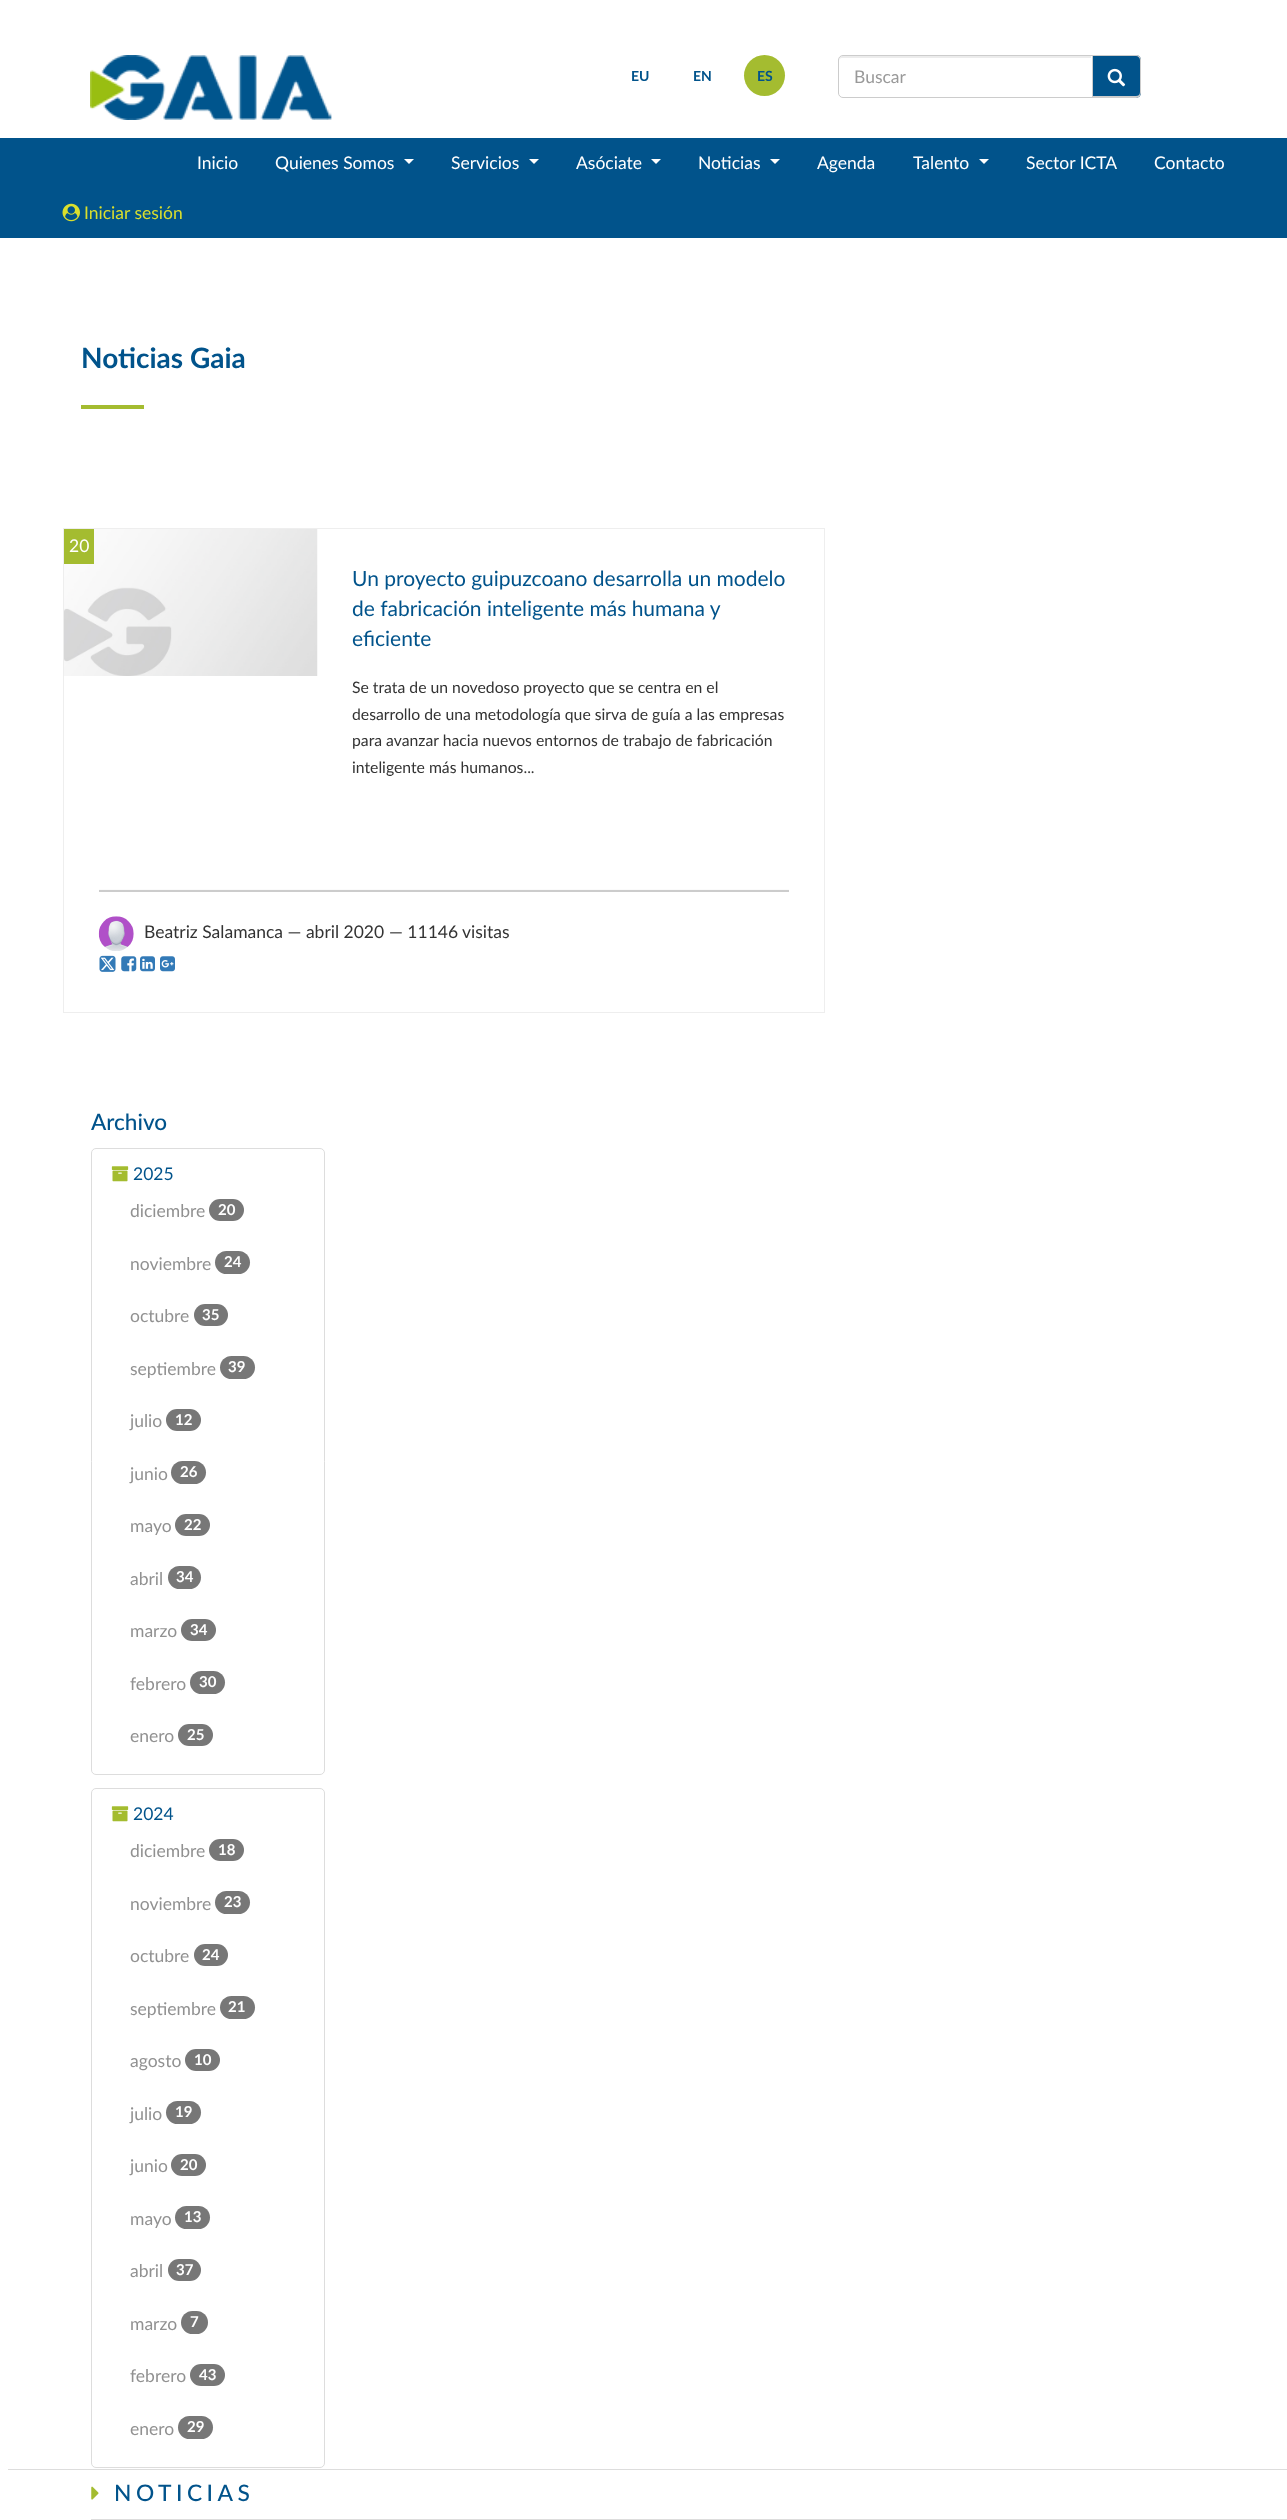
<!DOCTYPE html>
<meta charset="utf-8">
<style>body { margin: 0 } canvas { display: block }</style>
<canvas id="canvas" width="1287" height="2520"></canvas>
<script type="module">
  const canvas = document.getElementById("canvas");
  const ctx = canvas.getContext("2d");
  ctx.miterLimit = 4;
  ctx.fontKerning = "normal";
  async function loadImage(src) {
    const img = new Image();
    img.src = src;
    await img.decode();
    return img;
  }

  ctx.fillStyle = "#ffffff";
  ctx.fillRect(0, 0, 1287, 2520);
  ctx.drawImage(await loadImage("img1.png"), 90, 55, 242, 65);
  ctx.font = "bold 14px Lato";
  ctx.fillStyle = "#01538b";
  ctx.fillText("EU", 631, 81);
  ctx.fillText("EN", 693, 81);
  ctx.fillStyle = "#a4bc30";
  ctx.beginPath();
  ctx.arc(764.5, 75.5, 20.5, 0, Math.PI * 2);
  ctx.fill();
  ctx.fillStyle = "#01538b";
  ctx.fillText("ES", 757, 81);
  ctx.fillStyle = "#ececec";
  ctx.beginPath();
  ctx.moveTo(842, 58);
  ctx.lineTo(1091, 58);
  ctx.lineTo(1091, 56);
  ctx.lineTo(843, 56);
  ctx.bezierCurveTo(841, 56, 839, 58, 839, 60);
  ctx.lineTo(839, 61);
  ctx.bezierCurveTo(839, 59, 840, 58, 842, 58);
  ctx.closePath();
  ctx.fill();
  ctx.fillStyle = "#01538b";
  ctx.beginPath();
  ctx.roundRect(1093, 55, 48, 43, [0, 5, 5, 0]);
  ctx.fill();
  ctx.fillStyle = "#cccccc";
  ctx.beginPath();
  ctx.moveTo(1092, 55);
  ctx.lineTo(1136, 55);
  ctx.bezierCurveTo(1139, 55, 1141, 57, 1141, 60);
  ctx.lineTo(1141, 92);
  ctx.bezierCurveTo(1141, 95, 1139, 98, 1136, 98);
  ctx.lineTo(1092, 98);
  ctx.closePath();
  ctx.moveTo(1092, 56);
  ctx.lineTo(1136, 56);
  ctx.bezierCurveTo(1138, 56, 1140, 58, 1140, 60);
  ctx.lineTo(1140, 92);
  ctx.bezierCurveTo(1140, 95, 1138, 96, 1136, 96);
  ctx.lineTo(1092, 96);
  ctx.closePath();
  ctx.fill("evenodd");
  ctx.beginPath();
  ctx.roundRect(838.5, 55.5, 254, 42, [4.5, 0, 0, 4.5]);
  ctx.strokeStyle = "#cccccc";
  ctx.stroke();
  ctx.font = "17.5px Lato";
  ctx.fillStyle = "#999999";
  ctx.fillText("Buscar", 854, 83);
  ctx.drawImage(await loadImage("img2.png"), 1107, 68, 19, 19);
  ctx.fillStyle = "#01538b";
  ctx.fillRect(0, 138, 1287, 100);
  ctx.fillStyle = "#ffffff";
  ctx.fillText("Inicio", 197, 169);
  ctx.fillText("Quienes Somos", 275, 169);
  ctx.beginPath();
  ctx.moveTo(404, 159);
  ctx.lineTo(414, 159);
  ctx.lineTo(409, 164);
  ctx.closePath();
  ctx.fill();
  ctx.fillText("Servicios", 451, 169);
  ctx.beginPath();
  ctx.moveTo(529, 159);
  ctx.lineTo(539, 159);
  ctx.lineTo(534, 164);
  ctx.closePath();
  ctx.fill();
  ctx.fillText("Asóciate", 576, 169);
  ctx.beginPath();
  ctx.moveTo(651, 159);
  ctx.lineTo(661, 159);
  ctx.lineTo(656, 164);
  ctx.closePath();
  ctx.fill();
  ctx.fillText("Noticias", 698, 169);
  ctx.beginPath();
  ctx.moveTo(770, 159);
  ctx.lineTo(780, 159);
  ctx.lineTo(775, 164);
  ctx.closePath();
  ctx.fill();
  ctx.fillText("Agenda", 817, 169);
  ctx.fillText("Talento", 913, 169);
  ctx.beginPath();
  ctx.moveTo(979, 159);
  ctx.lineTo(989, 159);
  ctx.lineTo(984, 164);
  ctx.closePath();
  ctx.fill();
  ctx.fillText("Sector ICTA", 1026, 169);
  ctx.fillText("Contacto", 1154, 169);
  ctx.drawImage(await loadImage("img3.png"), 62, 203, 18, 19);
  ctx.fillStyle = "#dadf2d";
  ctx.fillText("Iniciar sesión", 84, 219);
  ctx.font = "bold 28px Lato";
  ctx.fillStyle = "#01538b";
  ctx.fillText("Noticias Gaia", 81, 368);
  ctx.fillStyle = "#a4bc30";
  ctx.fillRect(81, 405, 63, 4);
  ctx.strokeStyle = "#eeeeee";
  ctx.strokeRect(63.5, 528.5, 761, 484);
  ctx.drawImage(await loadImage("img4.png"), 64, 529, 254, 147);
  ctx.fillRect(64, 529, 30, 35);
  ctx.font = "17.5px Lato";
  ctx.fillStyle = "#ffffff";
  ctx.fillText("20", 69, 552);
  ctx.font = "21px Lato";
  ctx.fillStyle = "#01538b";
  ctx.fillText("Un proyecto guipuzcoano desarrolla un modelo", 352, 586);
  ctx.fillText("de fabricación inteligente más humana y", 352, 616);
  ctx.fillText("eficiente", 352, 646);
  ctx.font = "15.75px Lato";
  ctx.fillStyle = "#333333";
  ctx.fillText("Se trata de un novedoso proyecto que se centra en el", 352, 693);
  ctx.fillText("desarrollo de una metodología que sirva de guía a las empresas", 352, 720);
  ctx.fillText("para avanzar hacia nuevos entornos de trabajo de fabricación", 352, 746);
  ctx.fillText("inteligente más humanos...", 352, 773);
  ctx.fillStyle = "#cccccc";
  ctx.fillRect(99, 890, 690, 2);
  ctx.fillStyle = "#fbfbfb";
  ctx.fillRect(99, 889, 690, 1);
  ctx.drawImage(await loadImage("img5.png"), 98, 916, 36, 35);
  ctx.font = "17.5px Lato";
  ctx.fillStyle = "#333333";
  ctx.fillText("Beatriz Salamanca — abril 2020", 144, 938);
  ctx.fillText("— 11146", 389, 938);
  ctx.fillText("visitas", 462, 938);
  ctx.drawImage(await loadImage("img6.png"), 99, 955, 17, 17);
  ctx.drawImage(await loadImage("img7.png"), 121, 956, 16, 16);
  ctx.drawImage(await loadImage("img8.png"), 140, 956, 15, 16);
  ctx.drawImage(await loadImage("img9.png"), 160, 956, 15, 16);
  ctx.font = "500 22.5px Lato";
  ctx.fillStyle = "#01538b";
  ctx.fillText("Archivo", 91, 1130);
  ctx.beginPath();
  ctx.roundRect(91.5, 1148.5, 233, 626, 4.5);
  ctx.strokeStyle = "#dddddd";
  ctx.stroke();
  ctx.drawImage(await loadImage("img10.png"), 111, 1166, 18, 16);
  ctx.font = "17.5px Lato";
  ctx.fillText("2025", 133, 1180);
  ctx.fillStyle = "#919191";
  ctx.fillText("diciembre", 130, 1217);
  ctx.fillStyle = "#777777";
  ctx.beginPath();
  ctx.roundRect(209, 1199, 35, 22, 11);
  ctx.fill();
  ctx.font = "bold 15px Lato";
  ctx.fillStyle = "#ffffff";
  ctx.fillText("20", 218, 1215);
  ctx.font = "17.5px Lato";
  ctx.fillStyle = "#919191";
  ctx.fillText("noviembre", 130, 1270);
  ctx.fillStyle = "#777777";
  ctx.beginPath();
  ctx.roundRect(215, 1251, 35, 23, 11.5);
  ctx.fill();
  ctx.font = "bold 15px Lato";
  ctx.fillStyle = "#ffffff";
  ctx.fillText("24", 224, 1267);
  ctx.font = "17.5px Lato";
  ctx.fillStyle = "#919191";
  ctx.fillText("octubre", 130, 1322);
  ctx.fillStyle = "#777777";
  ctx.beginPath();
  ctx.roundRect(194, 1304, 34, 22, 11);
  ctx.fill();
  ctx.font = "bold 15px Lato";
  ctx.fillStyle = "#ffffff";
  ctx.fillText("35", 202, 1320);
  ctx.font = "17.5px Lato";
  ctx.fillStyle = "#919191";
  ctx.fillText("septiembre", 130, 1375);
  ctx.fillStyle = "#777777";
  ctx.beginPath();
  ctx.roundRect(220, 1356, 35, 23, 11.5);
  ctx.fill();
  ctx.font = "bold 15px Lato";
  ctx.fillStyle = "#ffffff";
  ctx.fillText("39", 228, 1372);
  ctx.font = "17.5px Lato";
  ctx.fillStyle = "#919191";
  ctx.fillText("julio", 130, 1427);
  ctx.fillStyle = "#777777";
  ctx.beginPath();
  ctx.roundRect(166, 1409, 35, 22, 11);
  ctx.fill();
  ctx.font = "bold 15px Lato";
  ctx.fillStyle = "#ffffff";
  ctx.fillText("12", 175, 1425);
  ctx.font = "17.5px Lato";
  ctx.fillStyle = "#919191";
  ctx.fillText("junio", 130, 1480);
  ctx.fillStyle = "#777777";
  ctx.beginPath();
  ctx.roundRect(171, 1461, 35, 23, 11.5);
  ctx.fill();
  ctx.font = "bold 15px Lato";
  ctx.fillStyle = "#ffffff";
  ctx.fillText("26", 180, 1477);
  ctx.font = "17.5px Lato";
  ctx.fillStyle = "#919191";
  ctx.fillText("mayo", 130, 1532);
  ctx.fillStyle = "#777777";
  ctx.beginPath();
  ctx.roundRect(175, 1514, 35, 22, 11);
  ctx.fill();
  ctx.font = "bold 15px Lato";
  ctx.fillStyle = "#ffffff";
  ctx.fillText("22", 184, 1530);
  ctx.font = "17.5px Lato";
  ctx.fillStyle = "#919191";
  ctx.fillText("abril", 130, 1585);
  ctx.fillStyle = "#777777";
  ctx.beginPath();
  ctx.roundRect(168, 1566, 33, 23, 11.5);
  ctx.fill();
  ctx.font = "bold 15px Lato";
  ctx.fillStyle = "#ffffff";
  ctx.fillText("34", 176, 1582);
  ctx.font = "17.5px Lato";
  ctx.fillStyle = "#919191";
  ctx.fillText("marzo", 130, 1637);
  ctx.fillStyle = "#777777";
  ctx.beginPath();
  ctx.roundRect(181, 1619, 35, 22, 11);
  ctx.fill();
  ctx.font = "bold 15px Lato";
  ctx.fillStyle = "#ffffff";
  ctx.fillText("34", 190, 1635);
  ctx.font = "17.5px Lato";
  ctx.fillStyle = "#919191";
  ctx.fillText("febrero", 130, 1690);
  ctx.fillStyle = "#777777";
  ctx.beginPath();
  ctx.roundRect(190, 1671, 35, 23, 11.5);
  ctx.fill();
  ctx.font = "bold 15px Lato";
  ctx.fillStyle = "#ffffff";
  ctx.fillText("30", 199, 1687);
  ctx.font = "17.5px Lato";
  ctx.fillStyle = "#919191";
  ctx.fillText("enero", 130, 1742);
  ctx.fillStyle = "#777777";
  ctx.beginPath();
  ctx.roundRect(178, 1724, 35, 22, 11);
  ctx.fill();
  ctx.font = "bold 15px Lato";
  ctx.fillStyle = "#ffffff";
  ctx.fillText("25", 187, 1740);
  ctx.beginPath();
  ctx.roundRect(91.5, 1788.5, 233, 679, 4.5);
  ctx.stroke();
  ctx.drawImage(await loadImage("img10.png"), 111, 1806, 18, 16);
  ctx.font = "17.5px Lato";
  ctx.fillStyle = "#01538b";
  ctx.fillText("2024", 133, 1820);
  ctx.fillStyle = "#919191";
  ctx.fillText("diciembre", 130, 1857);
  ctx.fillStyle = "#777777";
  ctx.beginPath();
  ctx.roundRect(209, 1839, 35, 22, 11);
  ctx.fill();
  ctx.font = "bold 15px Lato";
  ctx.fillStyle = "#ffffff";
  ctx.fillText("18", 218, 1855);
  ctx.font = "17.5px Lato";
  ctx.fillStyle = "#919191";
  ctx.fillText("noviembre", 130, 1910);
  ctx.fillStyle = "#777777";
  ctx.beginPath();
  ctx.roundRect(215, 1891, 35, 23, 11.5);
  ctx.fill();
  ctx.font = "bold 15px Lato";
  ctx.fillStyle = "#ffffff";
  ctx.fillText("23", 224, 1907);
  ctx.font = "17.5px Lato";
  ctx.fillStyle = "#919191";
  ctx.fillText("octubre", 130, 1962);
  ctx.fillStyle = "#777777";
  ctx.beginPath();
  ctx.roundRect(194, 1944, 34, 22, 11);
  ctx.fill();
  ctx.font = "bold 15px Lato";
  ctx.fillStyle = "#ffffff";
  ctx.fillText("24", 202, 1960);
  ctx.font = "17.5px Lato";
  ctx.fillStyle = "#919191";
  ctx.fillText("septiembre", 130, 2015);
  ctx.fillStyle = "#777777";
  ctx.beginPath();
  ctx.roundRect(220, 1996, 35, 23, 11.5);
  ctx.fill();
  ctx.font = "bold 15px Lato";
  ctx.fillStyle = "#ffffff";
  ctx.fillText("21", 228, 2012);
  ctx.font = "17.5px Lato";
  ctx.fillStyle = "#919191";
  ctx.fillText("agosto", 130, 2067);
  ctx.fillStyle = "#777777";
  ctx.beginPath();
  ctx.roundRect(185, 2049, 35, 22, 11);
  ctx.fill();
  ctx.font = "bold 15px Lato";
  ctx.fillStyle = "#ffffff";
  ctx.fillText("10", 194, 2065);
  ctx.font = "17.5px Lato";
  ctx.fillStyle = "#919191";
  ctx.fillText("julio", 130, 2120);
  ctx.fillStyle = "#777777";
  ctx.beginPath();
  ctx.roundRect(166, 2101, 35, 23, 11.5);
  ctx.fill();
  ctx.font = "bold 15px Lato";
  ctx.fillStyle = "#ffffff";
  ctx.fillText("19", 175, 2117);
  ctx.font = "17.5px Lato";
  ctx.fillStyle = "#919191";
  ctx.fillText("junio", 130, 2172);
  ctx.fillStyle = "#777777";
  ctx.beginPath();
  ctx.roundRect(171, 2154, 35, 22, 11);
  ctx.fill();
  ctx.font = "bold 15px Lato";
  ctx.fillStyle = "#ffffff";
  ctx.fillText("20", 180, 2170);
  ctx.font = "17.5px Lato";
  ctx.fillStyle = "#919191";
  ctx.fillText("mayo", 130, 2225);
  ctx.fillStyle = "#777777";
  ctx.beginPath();
  ctx.roundRect(175, 2206, 35, 23, 11.5);
  ctx.fill();
  ctx.font = "bold 15px Lato";
  ctx.fillStyle = "#ffffff";
  ctx.fillText("13", 184, 2222);
  ctx.font = "17.5px Lato";
  ctx.fillStyle = "#919191";
  ctx.fillText("abril", 130, 2277);
  ctx.fillStyle = "#777777";
  ctx.beginPath();
  ctx.roundRect(168, 2259, 33, 22, 11);
  ctx.fill();
  ctx.font = "bold 15px Lato";
  ctx.fillStyle = "#ffffff";
  ctx.fillText("37", 176, 2275);
  ctx.font = "17.5px Lato";
  ctx.fillStyle = "#919191";
  ctx.fillText("marzo", 130, 2330);
  ctx.fillStyle = "#777777";
  ctx.beginPath();
  ctx.roundRect(181, 2311, 27, 23, 11.5);
  ctx.fill();
  ctx.font = "bold 15px Lato";
  ctx.fillStyle = "#ffffff";
  ctx.fillText("7", 190, 2327);
  ctx.font = "17.5px Lato";
  ctx.fillStyle = "#919191";
  ctx.fillText("febrero", 130, 2382);
  ctx.fillStyle = "#777777";
  ctx.beginPath();
  ctx.roundRect(190, 2364, 35, 22, 11);
  ctx.fill();
  ctx.font = "bold 15px Lato";
  ctx.fillStyle = "#ffffff";
  ctx.fillText("43", 199, 2380);
  ctx.font = "17.5px Lato";
  ctx.fillStyle = "#919191";
  ctx.fillText("enero", 130, 2435);
  ctx.fillStyle = "#777777";
  ctx.beginPath();
  ctx.roundRect(178, 2416, 35, 23, 11.5);
  ctx.fill();
  ctx.font = "bold 15px Lato";
  ctx.fillStyle = "#ffffff";
  ctx.fillText("29", 187, 2432);
  ctx.fillStyle = "#dddddd";
  ctx.fillRect(8, 2469, 1279, 1);
  ctx.fillRect(91, 2519, 1196, 1);
  ctx.drawImage(await loadImage("img11.png"), 91, 2486, 8, 14);
  ctx.letterSpacing = "4.5px";
  ctx.font = "500 22.75px Lato";
  ctx.fillStyle = "#01538b";
  ctx.fillText("NOTICIAS", 114, 2501);
</script>
